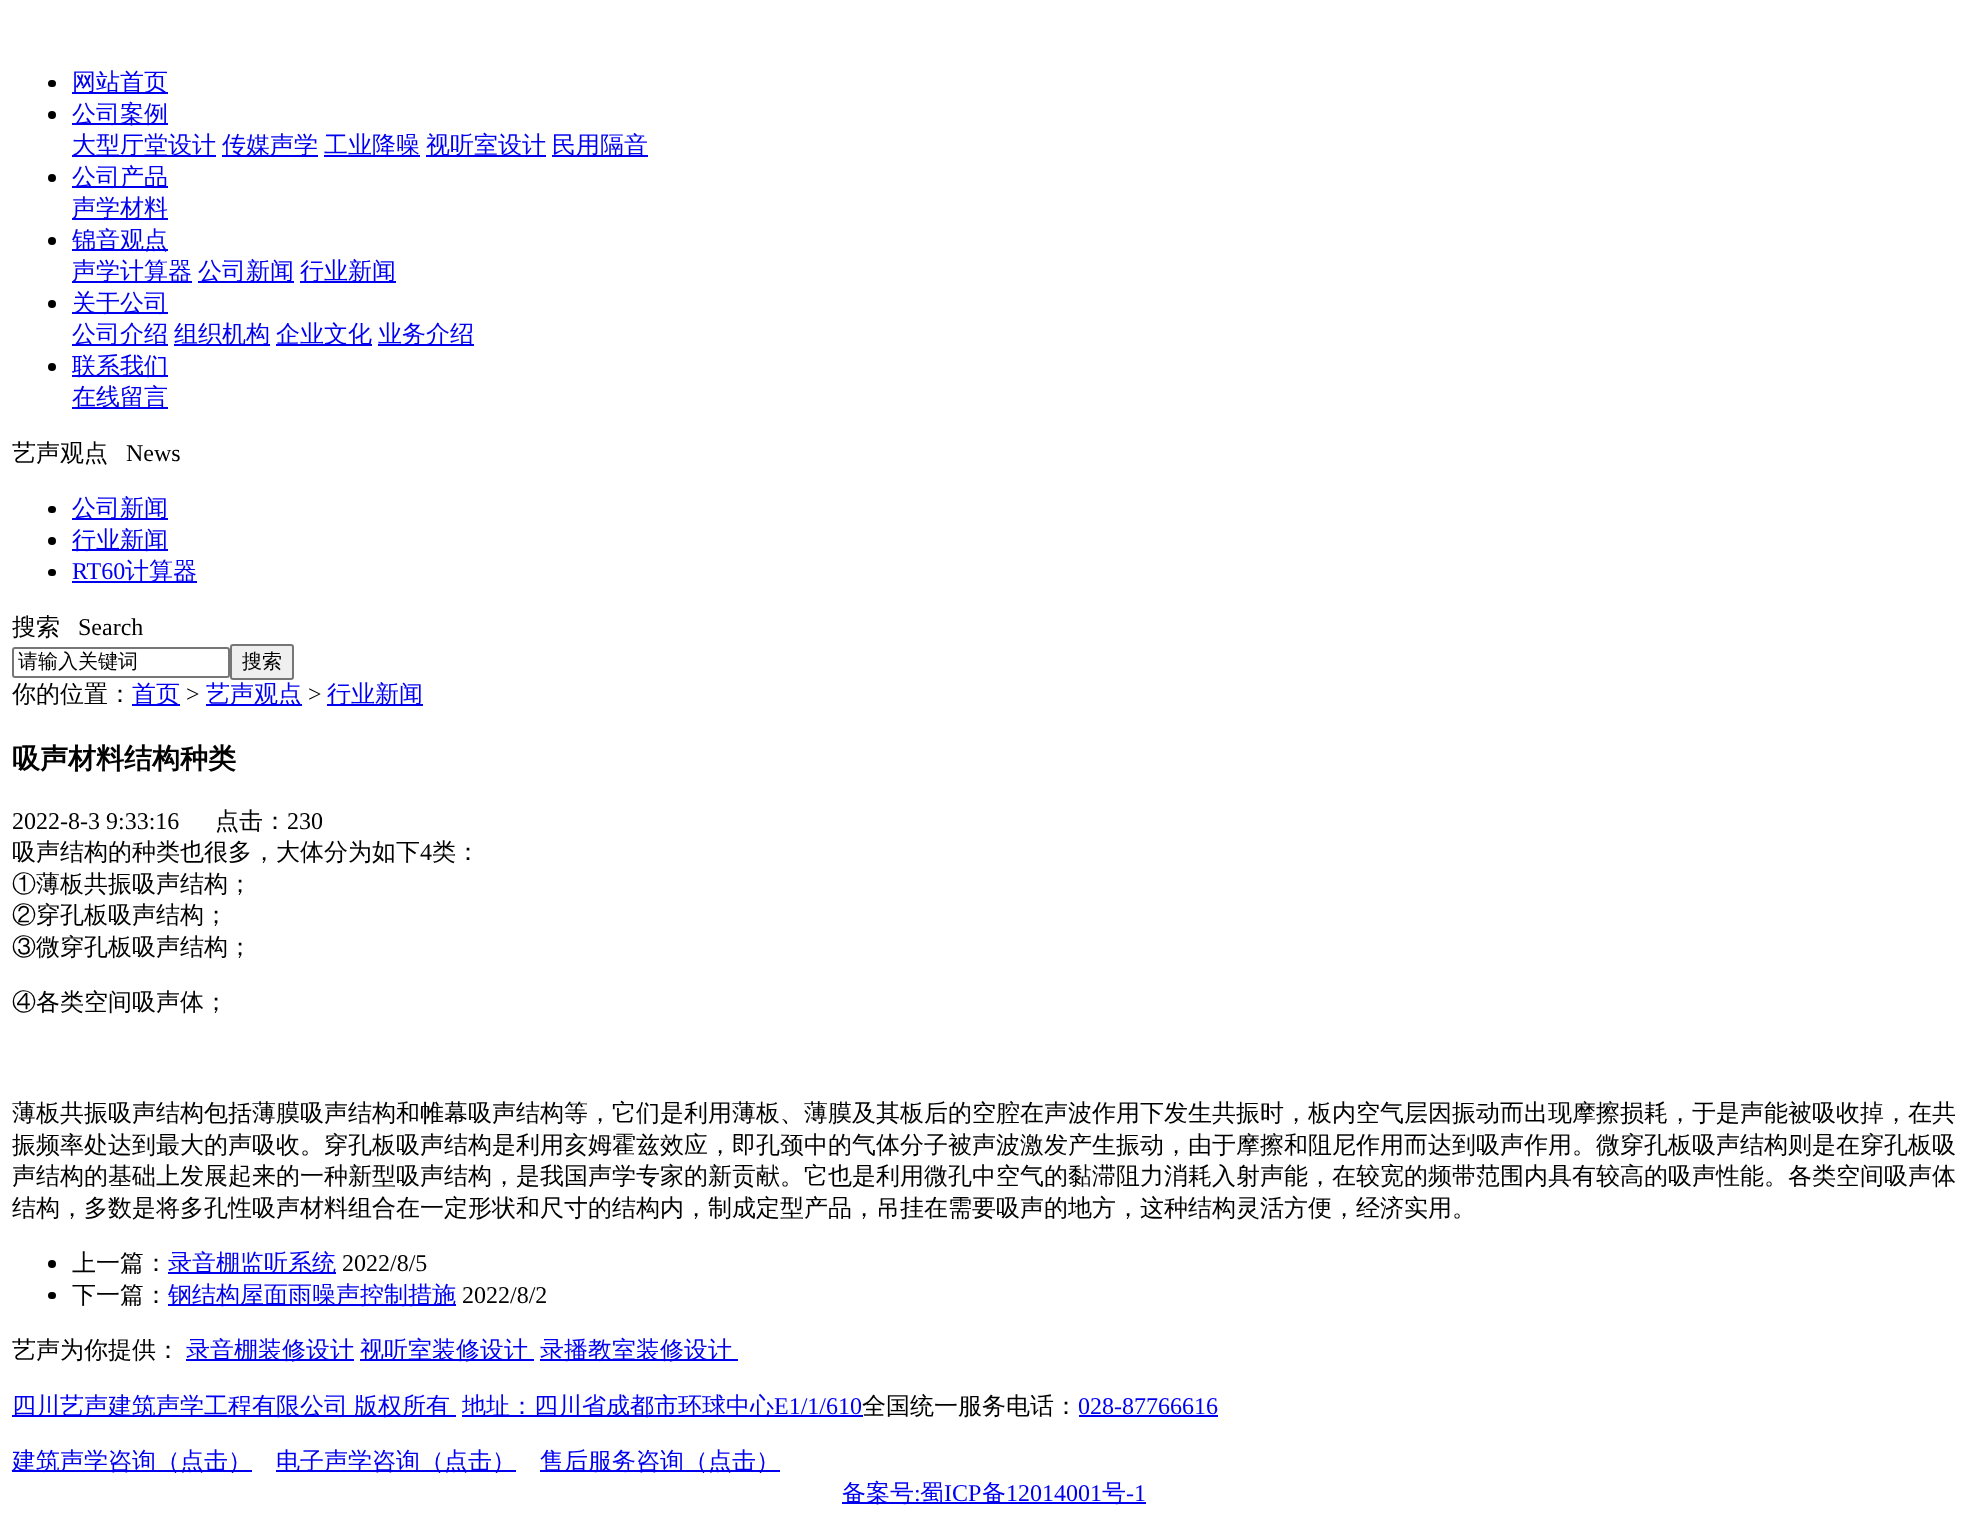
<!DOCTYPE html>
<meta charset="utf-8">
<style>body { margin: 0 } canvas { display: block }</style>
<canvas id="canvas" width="1987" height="1533"></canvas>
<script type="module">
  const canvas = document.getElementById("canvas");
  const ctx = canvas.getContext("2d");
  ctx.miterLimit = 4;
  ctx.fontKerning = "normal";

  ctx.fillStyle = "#ffffff";
  ctx.fillRect(0, 0, 1987, 1533);
  ctx.fillStyle = "#000000";
  ctx.beginPath();
  ctx.roundRect(48, 80, 8, 7, 3.5);
  ctx.fill();
  ctx.fillStyle = "#0000ee";
  ctx.fillRect(72, 92, 96, 2);
  ctx.font = "500 24px WenQuanYi Zen Hei";
  ctx.fillText("网站首页", 72, 90);
  ctx.fillStyle = "#000000";
  ctx.beginPath();
  ctx.arc(52, 115, 4, 0, Math.PI * 2);
  ctx.fill();
  ctx.fillStyle = "#0000ee";
  ctx.fillRect(72, 123, 96, 2);
  ctx.fillText("公司案例", 72, 122);
  ctx.fillRect(72, 155, 144, 2);
  ctx.fillText("大型厅堂设计", 72, 153);
  ctx.fillRect(222, 155, 96, 2);
  ctx.fillText("传媒声学", 222, 153);
  ctx.fillRect(324, 155, 96, 2);
  ctx.fillText("工业降噪", 324, 153);
  ctx.fillRect(426, 155, 120, 2);
  ctx.fillText("视听室设计", 426, 153);
  ctx.fillRect(552, 155, 96, 2);
  ctx.fillText("民用隔音", 552, 153);
  ctx.fillStyle = "#000000";
  ctx.beginPath();
  ctx.arc(52, 178, 4, 0, Math.PI * 2);
  ctx.fill();
  ctx.fillStyle = "#0000ee";
  ctx.fillRect(72, 186, 96, 2);
  ctx.fillText("公司产品", 72, 185);
  ctx.fillRect(72, 218, 96, 2);
  ctx.fillText("声学材料", 72, 216);
  ctx.fillStyle = "#000000";
  ctx.beginPath();
  ctx.arc(52, 241, 4, 0, Math.PI * 2);
  ctx.fill();
  ctx.fillStyle = "#0000ee";
  ctx.fillRect(72, 249, 96, 2);
  ctx.fillText("锦音观点", 72, 248);
  ctx.fillRect(72, 281, 120, 2);
  ctx.fillText("声学计算器", 72, 279);
  ctx.fillRect(198, 281, 96, 2);
  ctx.fillText("公司新闻", 198, 279);
  ctx.fillRect(300, 281, 96, 2);
  ctx.fillText("行业新闻", 300, 279);
  ctx.fillStyle = "#000000";
  ctx.beginPath();
  ctx.arc(52, 304, 4, 0, Math.PI * 2);
  ctx.fill();
  ctx.fillStyle = "#0000ee";
  ctx.fillRect(72, 312, 96, 2);
  ctx.fillText("关于公司", 72, 311);
  ctx.fillRect(72, 344, 96, 2);
  ctx.fillText("公司介绍", 72, 342);
  ctx.fillRect(174, 344, 96, 2);
  ctx.fillText("组织机构", 174, 342);
  ctx.fillRect(276, 344, 96, 2);
  ctx.fillText("企业文化", 276, 342);
  ctx.fillRect(378, 344, 96, 2);
  ctx.fillText("业务介绍", 378, 342);
  ctx.fillStyle = "#000000";
  ctx.beginPath();
  ctx.arc(52, 367, 4, 0, Math.PI * 2);
  ctx.fill();
  ctx.fillStyle = "#0000ee";
  ctx.fillRect(72, 375, 96, 2);
  ctx.fillText("联系我们", 72, 374);
  ctx.fillRect(72, 407, 96, 2);
  ctx.fillText("在线留言", 72, 405);
  ctx.fillStyle = "#000000";
  ctx.fillText("艺声观点", 12, 461);
  ctx.font = "24px Liberation Serif";
  ctx.fillText("News", 126, 461);
  ctx.beginPath();
  ctx.roundRect(48, 506, 8, 7, 3.5);
  ctx.fill();
  ctx.fillStyle = "#0000ee";
  ctx.fillRect(72, 518, 96, 2);
  ctx.font = "500 24px WenQuanYi Zen Hei";
  ctx.fillText("公司新闻", 72, 516);
  ctx.fillStyle = "#000000";
  ctx.beginPath();
  ctx.arc(52, 541, 4, 0, Math.PI * 2);
  ctx.fill();
  ctx.fillStyle = "#0000ee";
  ctx.fillRect(72, 549, 96, 2);
  ctx.fillText("行业新闻", 72, 548);
  ctx.fillStyle = "#000000";
  ctx.beginPath();
  ctx.roundRect(48, 569, 8, 7, 3.5);
  ctx.fill();
  ctx.font = "24px Liberation Serif";
  ctx.fillStyle = "#0000ee";
  ctx.fillText("RT60", 72, 579);
  ctx.fillRect(72, 581, 125, 2);
  ctx.font = "500 24px WenQuanYi Zen Hei";
  ctx.fillText("计算器", 125, 579);
  ctx.fillStyle = "#000000";
  ctx.fillText("搜索", 12, 635);
  ctx.font = "24px Liberation Serif";
  ctx.fillText("Search", 78, 635);
  ctx.beginPath();
  ctx.roundRect(13, 648, 216, 29, 2);
  ctx.strokeStyle = "#767676";
  ctx.lineWidth = 2;
  ctx.stroke();
  ctx.font = "500 20px WenQuanYi Zen Hei";
  ctx.fillText("请输入关键词", 18, 668);
  ctx.fillStyle = "#efefef";
  ctx.beginPath();
  ctx.roundRect(231, 645, 62, 34, 2);
  ctx.fill();
  ctx.stroke();
  ctx.fillStyle = "#000000";
  ctx.fillText("搜索", 242, 668);
  ctx.font = "500 24px WenQuanYi Zen Hei";
  ctx.fillText("你的位置：", 12, 702);
  ctx.fillStyle = "#0000ee";
  ctx.fillRect(132, 704, 48, 2);
  ctx.fillText("首页", 132, 702);
  ctx.font = "24px Liberation Serif";
  ctx.fillStyle = "#000000";
  ctx.fillText(">", 186, 702);
  ctx.fillStyle = "#0000ee";
  ctx.fillRect(206, 704, 96, 2);
  ctx.font = "500 24px WenQuanYi Zen Hei";
  ctx.fillText("艺声观点", 206, 702);
  ctx.font = "24px Liberation Serif";
  ctx.fillStyle = "#000000";
  ctx.fillText(">", 308, 702);
  ctx.fillStyle = "#0000ee";
  ctx.fillRect(327, 704, 96, 2);
  ctx.font = "500 24px WenQuanYi Zen Hei";
  ctx.fillText("行业新闻", 327, 702);
  ctx.font = "bold 28px WenQuanYi Zen Hei";
  ctx.fillStyle = "#000000";
  ctx.fillText("吸声材料结构种类", 12, 768);
  ctx.font = "24px Liberation Serif";
  ctx.fillText("2022-8-3 9:33:16", 12, 829);
  ctx.font = "500 24px WenQuanYi Zen Hei";
  ctx.fillText("点击：", 215, 829);
  ctx.font = "24px Liberation Serif";
  ctx.fillText("230", 287, 829);
  ctx.font = "500 24px WenQuanYi Zen Hei";
  ctx.fillText("吸声结构的种类也很多，大体分为如下", 12, 860);
  ctx.font = "24px Liberation Serif";
  ctx.fillText("4", 420, 860);
  ctx.font = "500 24px WenQuanYi Zen Hei";
  ctx.fillText("类：", 432, 860);
  ctx.fillText("①薄板共振吸声结构；", 12, 892);
  ctx.fillText("②穿孔板吸声结构；", 12, 923);
  ctx.fillText("③微穿孔板吸声结构；", 12, 955);
  ctx.fillText("④各类空间吸声体；", 12, 1010);
  ctx.fillText("薄板共振吸声结构包括薄膜吸声结构和帷幕吸声结构等，它们是利用薄板、薄膜及其板后的空腔在声波作用下发生共振时，板内空气层因振动而出现摩擦损耗，于是声能被吸收掉，在共", 12, 1121);
  ctx.fillText("振频率处达到最大的声吸收。穿孔板吸声结构是利用亥姆霍兹效应，即孔颈中的气体分子被声波激发产生振动，由于摩擦和阻尼作用而达到吸声作用。微穿孔板吸声结构则是在穿孔板吸", 12, 1153);
  ctx.fillText("声结构的基础上发展起来的一种新型吸声结构，是我国声学专家的新贡献。它也是利用微孔中空气的黏滞阻力消耗入射声能，在较宽的频带范围内具有较高的吸声性能。各类空间吸声体", 12, 1184);
  ctx.fillText("结构，多数是将多孔性吸声材料组合在一定形状和尺寸的结构内，制成定型产品，吊挂在需要吸声的地方，这种结构灵活方便，经济实用。", 12, 1216);
  ctx.beginPath();
  ctx.arc(52, 1264, 4, 0, Math.PI * 2);
  ctx.fill();
  ctx.fillText("上一篇：", 72, 1271);
  ctx.fillStyle = "#0000ee";
  ctx.fillRect(168, 1272, 168, 2);
  ctx.fillText("录音棚监听系统", 168, 1271);
  ctx.font = "24px Liberation Serif";
  ctx.fillStyle = "#000000";
  ctx.fillText("2022/8/5", 342, 1271);
  ctx.beginPath();
  ctx.roundRect(48, 1292, 8, 7, 3.5);
  ctx.fill();
  ctx.font = "500 24px WenQuanYi Zen Hei";
  ctx.fillText("下一篇：", 72, 1303);
  ctx.fillStyle = "#0000ee";
  ctx.fillRect(168, 1304, 288, 2);
  ctx.fillText("钢结构屋面雨噪声控制措施", 168, 1303);
  ctx.font = "24px Liberation Serif";
  ctx.fillStyle = "#000000";
  ctx.fillText("2022/8/2", 462, 1303);
  ctx.font = "500 24px WenQuanYi Zen Hei";
  ctx.fillText("艺声为你提供：", 12, 1358);
  ctx.fillStyle = "#0000ee";
  ctx.fillRect(186, 1359, 168, 2);
  ctx.fillText("录音棚装修设计", 186, 1358);
  ctx.fillRect(360, 1359, 174, 2);
  ctx.fillText("视听室装修设计", 360, 1358);
  ctx.fillRect(540, 1359, 198, 2);
  ctx.fillText("录播教室装修设计", 540, 1358);
  ctx.fillRect(12, 1415, 444, 2);
  ctx.fillText("四川艺声建筑声学工程有限公司", 12, 1414);
  ctx.fillText("版权所有", 354, 1414);
  ctx.fillRect(462, 1415, 401, 2);
  ctx.fillText("地址：四川省成都市环球中心", 462, 1414);
  ctx.font = "24px Liberation Serif";
  ctx.fillText("E1/1/610", 774, 1414);
  ctx.font = "500 24px WenQuanYi Zen Hei";
  ctx.fillStyle = "#000000";
  ctx.fillText("全国统一服务电话：", 862, 1414);
  ctx.font = "24px Liberation Serif";
  ctx.fillStyle = "#0000ee";
  ctx.fillText("028-87766616", 1078, 1414);
  ctx.fillRect(1079, 1415, 139, 2);
  ctx.fillRect(12, 1470, 240, 2);
  ctx.font = "500 24px WenQuanYi Zen Hei";
  ctx.fillText("建筑声学咨询（点击）", 12, 1469);
  ctx.fillRect(276, 1470, 240, 2);
  ctx.fillText("电子声学咨询（点击）", 276, 1469);
  ctx.fillRect(540, 1470, 240, 2);
  ctx.fillText("售后服务咨询（点击）", 540, 1469);
  ctx.fillRect(842, 1502, 304, 2);
  ctx.fillText("备案号", 842, 1501);
  ctx.font = "24px Liberation Serif";
  ctx.fillText(":", 914, 1501);
  ctx.font = "500 24px WenQuanYi Zen Hei";
  ctx.fillText("蜀", 920, 1501);
  ctx.font = "24px Liberation Serif";
  ctx.fillText("ICP", 944, 1501);
  ctx.font = "500 24px WenQuanYi Zen Hei";
  ctx.fillText("备", 982, 1501);
  ctx.font = "24px Liberation Serif";
  ctx.fillText("12014001", 1006, 1501);
  ctx.font = "500 24px WenQuanYi Zen Hei";
  ctx.fillText("号", 1102, 1501);
  ctx.font = "24px Liberation Serif";
  ctx.fillText("-1", 1126, 1501);
</script>
